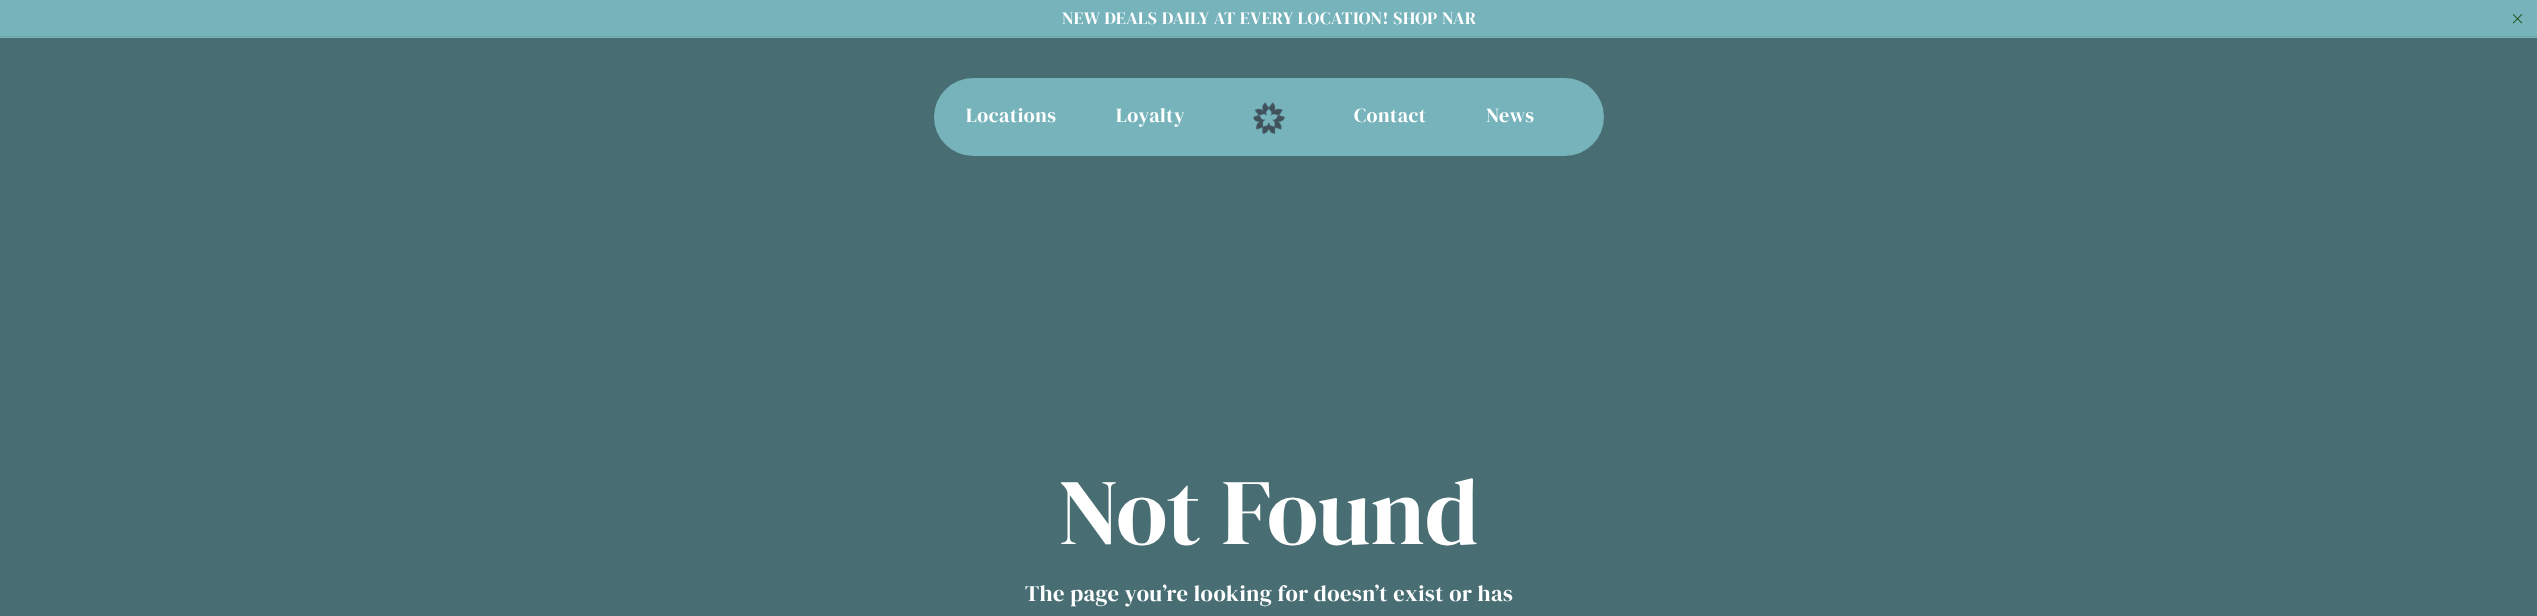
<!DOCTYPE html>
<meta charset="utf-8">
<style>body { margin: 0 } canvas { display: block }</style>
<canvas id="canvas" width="2537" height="616"></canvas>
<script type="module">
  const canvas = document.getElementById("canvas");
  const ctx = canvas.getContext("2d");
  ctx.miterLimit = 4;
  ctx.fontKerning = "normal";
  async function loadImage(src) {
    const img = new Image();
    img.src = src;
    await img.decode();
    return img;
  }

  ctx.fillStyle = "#486e73";
  ctx.fillRect(0, 0, 2537, 616);
  ctx.fillStyle = "#76b3bb";
  ctx.fillRect(0, 0, 2537, 38);
  ctx.letterSpacing = "0.55px";
  ctx.font = "17.5px DM Serif Display";
  ctx.fillStyle = "#ffffff";
  ctx.fillText("NEW DEALS DAILY AT EVERY LOCATION! SHOP NAR", 1062, 24);
  ctx.drawImage(await loadImage("img1.png"), 2512, 14, 11, 10);
  ctx.fillStyle = "#6ba7a8";
  ctx.fillRect(0, 36, 2537, 1);
  ctx.fillStyle = "#76b3bb";
  ctx.beginPath();
  ctx.roundRect(934, 78, 670, 78, 39);
  ctx.fill();
  ctx.drawImage(await loadImage("img2.png"), 1253, 102, 32, 32);
  ctx.letterSpacing = "0.5px";
  ctx.font = "20px DM Serif Display";
  ctx.fillStyle = "#ffffff";
  ctx.fillText("Locations", 966, 122);
  ctx.fillText("Loyalty", 1116, 122);
  ctx.fillText("Contact", 1354, 122);
  ctx.fillText("News", 1486, 122);
  ctx.letterSpacing = "0px";
  ctx.font = "93.75px DM Serif Display";
  ctx.fillText("Not Found", 1058, 544);
  ctx.letterSpacing = "0.45px";
  ctx.font = "22.5px DM Serif Display";
  ctx.fillText("The page you’re looking for doesn’t exist or has", 1025, 601);
</script>
